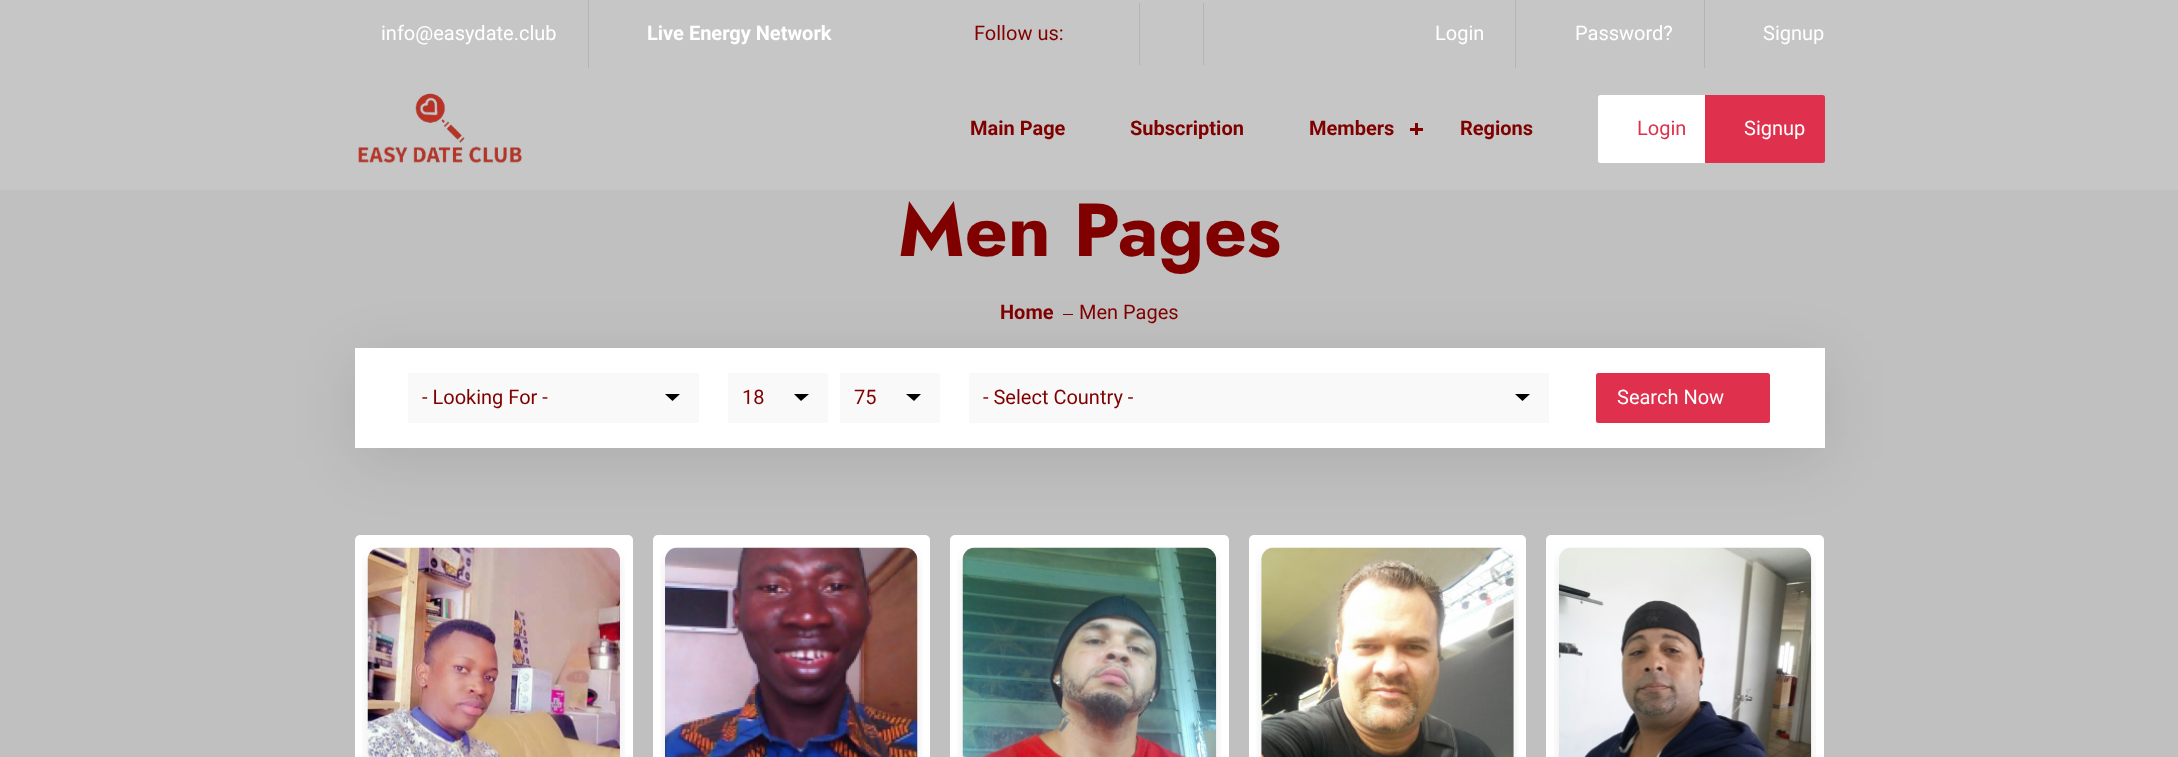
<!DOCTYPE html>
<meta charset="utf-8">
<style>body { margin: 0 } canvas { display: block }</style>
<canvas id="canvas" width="2178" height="757"></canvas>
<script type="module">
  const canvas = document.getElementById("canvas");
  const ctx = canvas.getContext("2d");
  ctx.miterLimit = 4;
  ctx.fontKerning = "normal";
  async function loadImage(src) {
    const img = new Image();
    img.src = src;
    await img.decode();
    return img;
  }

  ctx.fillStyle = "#c0c0c0";
  ctx.fillRect(0, 0, 2178, 757);
  ctx.fillStyle = "#c6c6c6";
  ctx.fillRect(0, 0, 2178, 190);
  ctx.fillStyle = "#b6b2bb";
  ctx.fillRect(588, 0, 1, 68);
  ctx.font = "20px Roboto";
  ctx.fillStyle = "#ffffff";
  ctx.fillText("info@easydate.club", 381, 40);
  ctx.font = "bold 20px Roboto";
  ctx.fillText("Live Energy Network", 647, 40);
  ctx.font = "20px Roboto";
  ctx.fillStyle = "#800000";
  ctx.fillText("Follow us:", 974, 40);
  ctx.fillStyle = "#b6b2bb";
  ctx.fillRect(1139, 3, 1, 62);
  ctx.fillRect(1203, 3, 1, 62);
  ctx.fillRect(1515, 0, 1, 68);
  ctx.fillStyle = "#ffffff";
  ctx.fillText("Login", 1435, 40);
  ctx.fillStyle = "#b6b2bb";
  ctx.fillRect(1704, 0, 1, 68);
  ctx.fillStyle = "#ffffff";
  ctx.fillText("Password?", 1575, 40);
  ctx.fillText("Signup", 1763, 40);
  ctx.drawImage(await loadImage("img1.png"), 358, 93, 164, 70);
  ctx.font = "bold 20px Roboto";
  ctx.fillStyle = "#800000";
  ctx.fillText("Main Page", 970, 135);
  ctx.fillText("Subscription", 1130, 135);
  ctx.fillText("Members", 1309, 135);
  ctx.fillRect(1415, 123, 3, 12);
  ctx.fillRect(1410, 128, 13, 3);
  ctx.fillText("Regions", 1460, 135);
  ctx.fillStyle = "#ffffff";
  ctx.beginPath();
  ctx.roundRect(1598, 95, 107, 68, [2.5, 0, 0, 2.5]);
  ctx.fill();
  ctx.font = "20px Roboto";
  ctx.fillStyle = "#df314d";
  ctx.fillText("Login", 1637, 135);
  ctx.beginPath();
  ctx.roundRect(1705, 95, 120, 68, [0, 2.5, 2.5, 0]);
  ctx.fill();
  ctx.fillStyle = "#ffffff";
  ctx.fillText("Signup", 1744, 135);
  ctx.fillStyle = "rgba(0, 0, 0, 0.1)";
  ctx.filter = "blur(31px)";
  ctx.beginPath();
  ctx.rect(355, 360, 1470, 100);
  ctx.fill();
  ctx.filter = "none";
  ctx.font = "bold 75px Jost";
  ctx.fillStyle = "#800000";
  ctx.fillText("Men Pages", 898, 256);
  ctx.font = "bold 20px Roboto";
  ctx.fillText("Home", 1000, 319);
  ctx.fillRect(1063, 314, 10, 1);
  ctx.font = "20px Roboto";
  ctx.fillText("Men Pages", 1079, 319);
  ctx.fillStyle = "#ffffff";
  ctx.fillRect(355, 348, 1470, 100);
  ctx.fillStyle = "#f9f9f9";
  ctx.fillRect(408, 373, 291, 50);
  ctx.fillStyle = "#800000";
  ctx.fillText("- Looking For -", 422, 404);
  ctx.fillStyle = "#000000";
  ctx.beginPath();
  ctx.moveTo(665, 394);
  ctx.lineTo(680, 394);
  ctx.lineTo(672.5, 401);
  ctx.closePath();
  ctx.fill();
  ctx.fillStyle = "#f9f9f9";
  ctx.fillRect(728, 373, 100, 50);
  ctx.fillStyle = "#800000";
  ctx.fillText("18", 742, 404);
  ctx.fillStyle = "#000000";
  ctx.beginPath();
  ctx.moveTo(794, 394);
  ctx.lineTo(809, 394);
  ctx.lineTo(801, 401);
  ctx.closePath();
  ctx.fill();
  ctx.fillStyle = "#f9f9f9";
  ctx.fillRect(840, 373, 100, 50);
  ctx.fillStyle = "#800000";
  ctx.fillText("75", 854, 404);
  ctx.fillStyle = "#000000";
  ctx.beginPath();
  ctx.moveTo(906, 394);
  ctx.lineTo(921, 394);
  ctx.lineTo(914, 401);
  ctx.closePath();
  ctx.fill();
  ctx.fillStyle = "#f9f9f9";
  ctx.fillRect(969, 373, 580, 50);
  ctx.fillStyle = "#800000";
  ctx.fillText("- Select Country -", 983, 404);
  ctx.fillStyle = "#000000";
  ctx.beginPath();
  ctx.moveTo(1515, 394);
  ctx.lineTo(1530, 394);
  ctx.lineTo(1522.5, 401);
  ctx.closePath();
  ctx.fill();
  ctx.fillStyle = "#df314d";
  ctx.beginPath();
  ctx.roundRect(1596, 373, 174, 50, 2.5);
  ctx.fill();
  ctx.fillStyle = "#ffffff";
  ctx.fillText("Search Now", 1617, 404);
  ctx.beginPath();
  ctx.roundRect(355, 535, 278, 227, 5);
  ctx.fill();
  ctx.drawImage(await loadImage("img2.png"), 362, 547, 263, 210);
  ctx.beginPath();
  ctx.roundRect(653, 535, 277, 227, 5);
  ctx.fill();
  ctx.drawImage(await loadImage("img3.png"), 660, 547, 263, 210);
  ctx.beginPath();
  ctx.roundRect(950, 535, 279, 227, 5);
  ctx.fill();
  ctx.drawImage(await loadImage("img4.png"), 957, 547, 264, 210);
  ctx.beginPath();
  ctx.roundRect(1249, 535, 277, 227, 5);
  ctx.fill();
  ctx.drawImage(await loadImage("img5.png"), 1256, 547, 263, 210);
  ctx.beginPath();
  ctx.roundRect(1546, 535, 278, 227, 5);
  ctx.fill();
  ctx.drawImage(await loadImage("img6.png"), 1554, 547, 262, 210);
</script>
